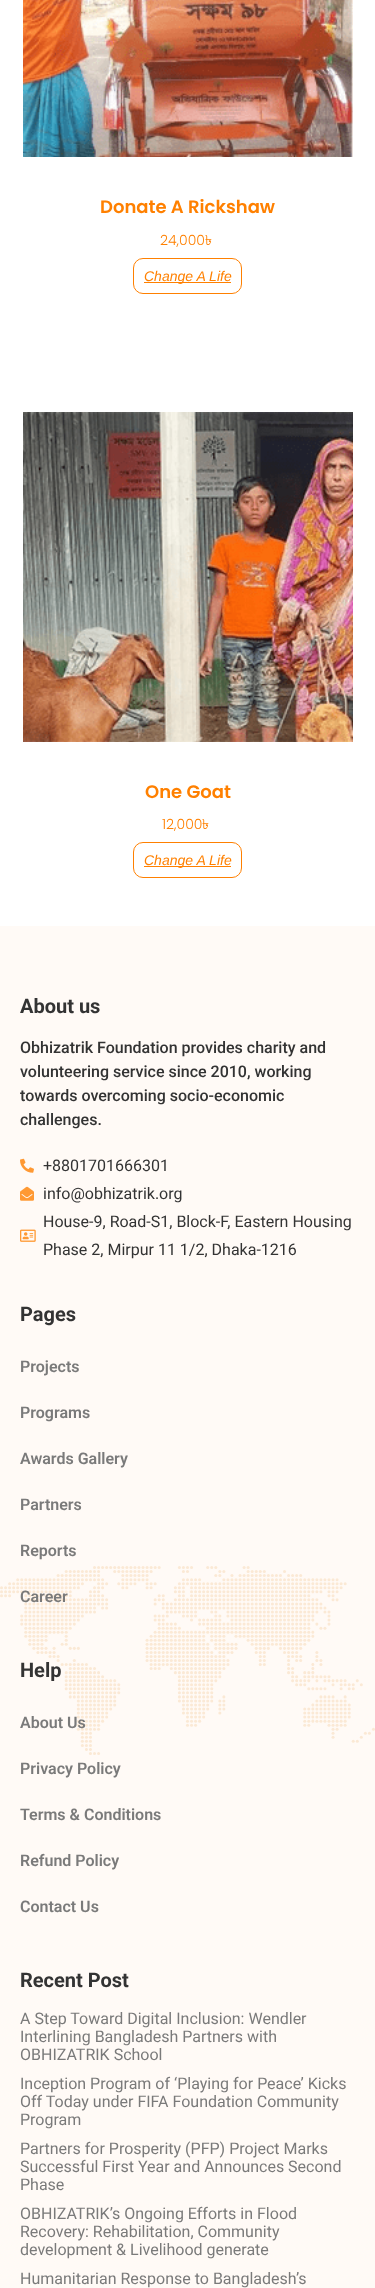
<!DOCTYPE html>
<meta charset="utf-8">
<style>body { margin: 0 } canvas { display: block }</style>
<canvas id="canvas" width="375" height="2288"></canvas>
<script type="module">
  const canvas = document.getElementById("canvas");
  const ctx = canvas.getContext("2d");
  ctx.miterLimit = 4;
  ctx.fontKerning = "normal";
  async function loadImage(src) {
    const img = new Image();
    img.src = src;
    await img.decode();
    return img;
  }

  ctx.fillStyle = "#ffffff";
  ctx.fillRect(0, 0, 375, 2288);
  ctx.drawImage(await loadImage("img1.png"), 23, 0, 330, 157);
  ctx.font = "600 18px Poppins";
  ctx.fillStyle = "#ff8000";
  ctx.fillText("Donate A Rickshaw", 100, 213);
  ctx.font = "300 14px Poppins";
  ctx.fillText("24,000", 160, 245);
  ctx.font = "14px Lohit Bengali";
  ctx.fillText("৳", 205, 245);
  ctx.beginPath();
  ctx.roundRect(133.5, 258.5, 108, 35, 9.5);
  ctx.strokeStyle = "#ff8000";
  ctx.stroke();
  ctx.fillRect(144, 282, 87, 1);
  ctx.font = "italic 14px Liberation Sans";
  ctx.fillText("Change A Life", 144, 281);
  ctx.drawImage(await loadImage("img2.png"), 23, 412, 330, 330);
  ctx.font = "600 18px Poppins";
  ctx.fillText("One Goat", 145, 798);
  ctx.font = "300 14px Poppins";
  ctx.fillText("12,000", 162, 829);
  ctx.font = "14px Lohit Bengali";
  ctx.fillText("৳", 202, 829);
  ctx.beginPath();
  ctx.roundRect(133.5, 842.5, 108, 35, 9.5);
  ctx.stroke();
  ctx.fillRect(144, 866, 87, 1);
  ctx.font = "italic 14px Liberation Sans";
  ctx.fillText("Change A Life", 144, 865);
  ctx.fillStyle = "#fffaf6";
  ctx.fillRect(0, 926, 375, 1362);
  ctx.drawImage(await loadImage("img3.png"), 0, 1566, 375, 189);
  ctx.font = "bold 20px Roboto";
  ctx.fillStyle = "#333333";
  ctx.fillText("About us", 20, 1013);
  ctx.font = "500 16px Roboto";
  ctx.fillText("Obhizatrik Foundation provides charity and", 20, 1053);
  ctx.fillText("volunteering service since 2010, working", 20, 1077);
  ctx.fillText("towards overcoming socio-economic", 20, 1101);
  ctx.fillText("challenges.", 20, 1125);
  ctx.drawImage(await loadImage("img4.png"), 20, 1158, 14, 15);
  ctx.font = "16px Roboto";
  ctx.fillText("+8801701666301", 43, 1171);
  ctx.drawImage(await loadImage("img5.png"), 20, 1186, 14, 15);
  ctx.fillText("info@obhizatrik.org", 43, 1199);
  ctx.drawImage(await loadImage("img6.png"), 20, 1229, 16, 13);
  ctx.fillText("House-9, Road-S1, Block-F, Eastern Housing", 43, 1227);
  ctx.fillText("Phase 2, Mirpur 11 1/2, Dhaka-1216", 43, 1255);
  ctx.font = "bold 20px Roboto";
  ctx.fillText("Pages", 20, 1321);
  ctx.font = "600 16px Roboto";
  ctx.fillStyle = "#7a7a7a";
  ctx.fillText("Projects", 20, 1372);
  ctx.fillText("Programs", 20, 1418);
  ctx.fillText("Awards Gallery", 20, 1464);
  ctx.fillText("Partners", 20, 1510);
  ctx.fillText("Reports", 20, 1556);
  ctx.fillText("Career", 20, 1602);
  ctx.font = "bold 20px Roboto";
  ctx.fillStyle = "#333333";
  ctx.fillText("Help", 20, 1677);
  ctx.font = "600 16px Roboto";
  ctx.fillStyle = "#7a7a7a";
  ctx.fillText("About Us", 20, 1728);
  ctx.fillText("Privacy Policy", 20, 1774);
  ctx.fillText("Terms & Conditions", 20, 1820);
  ctx.fillText("Refund Policy", 20, 1866);
  ctx.fillText("Contact Us", 20, 1912);
  ctx.font = "bold 20px Roboto";
  ctx.fillStyle = "#333333";
  ctx.fillText("Recent Post", 20, 1987);
  ctx.font = "16px Roboto";
  ctx.fillStyle = "#7a7a7a";
  ctx.fillText("A Step Toward Digital Inclusion: Wendler", 20, 2024);
  ctx.fillText("Interlining Bangladesh Partners with", 20, 2042);
  ctx.fillText("OBHIZATRIK School", 20, 2060);
  ctx.fillText("Inception Program of ‘Playing for Peace’ Kicks", 20, 2089);
  ctx.fillText("Off Today under FIFA Foundation Community", 20, 2107);
  ctx.fillText("Program", 20, 2125);
  ctx.fillText("Partners for Prosperity (PFP) Project Marks", 20, 2154);
  ctx.fillText("Successful First Year and Announces Second", 20, 2172);
  ctx.fillText("Phase", 20, 2190);
  ctx.fillText("OBHIZATRIK’s Ongoing Efforts in Flood", 20, 2219);
  ctx.fillText("Recovery: Rehabilitation, Community", 20, 2237);
  ctx.fillText("development & Livelihood generate", 20, 2255);
  ctx.fillText("Humanitarian Response to Bangladesh’s", 20, 2284);
</script>
